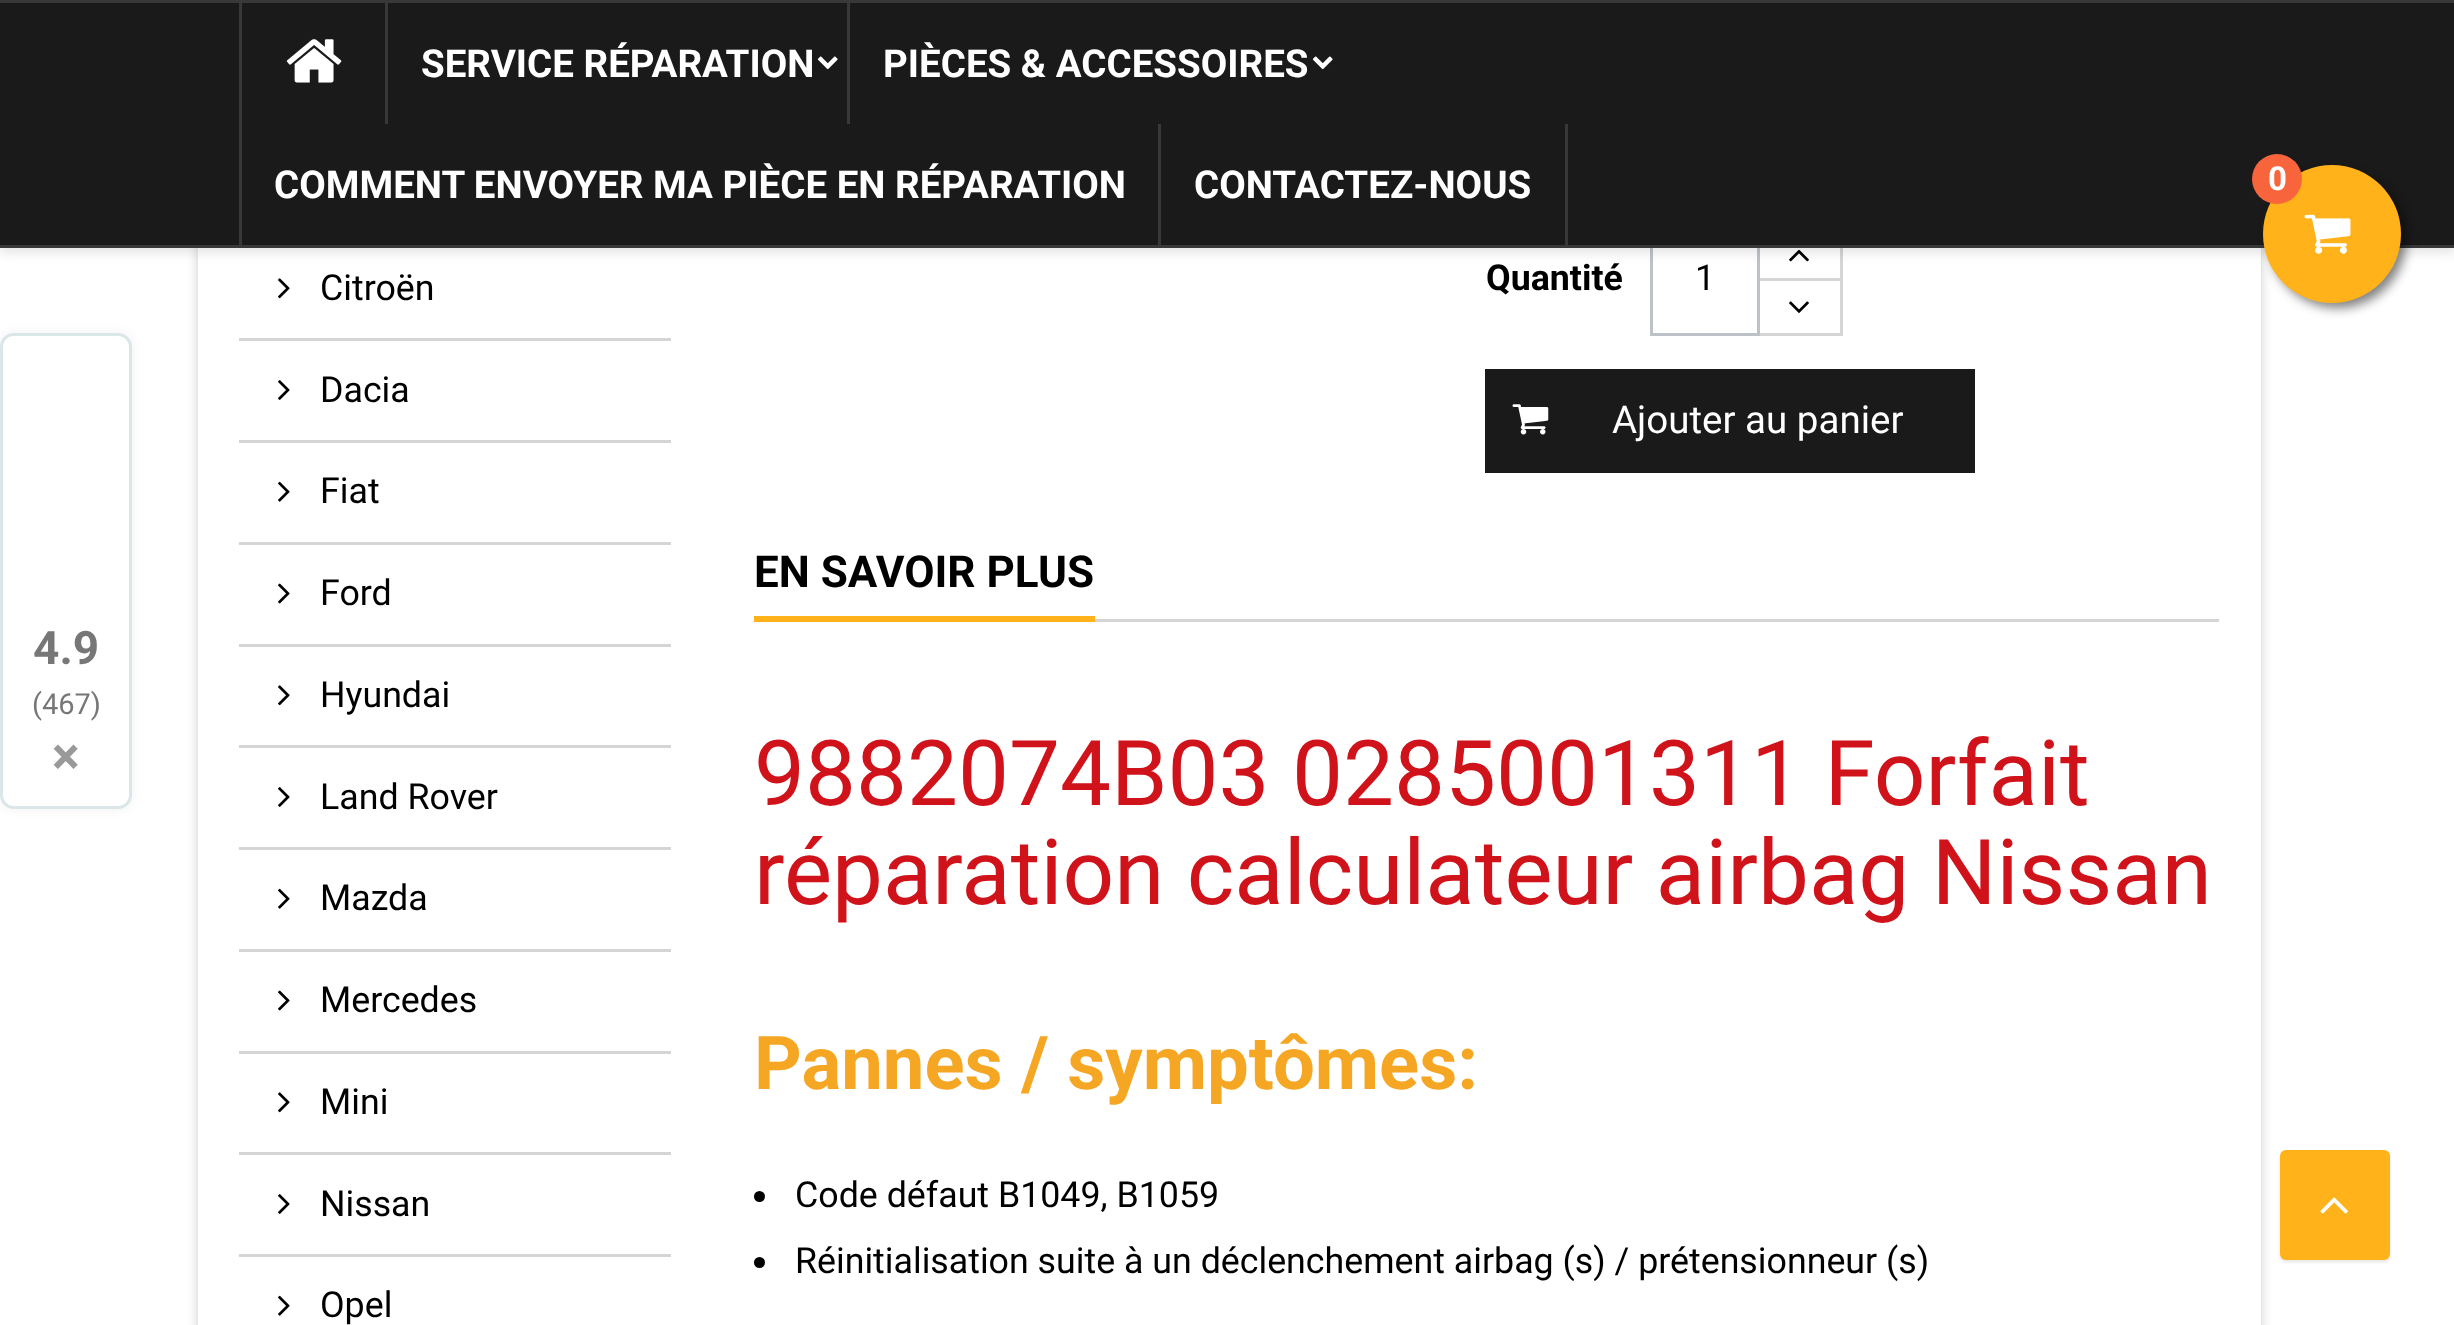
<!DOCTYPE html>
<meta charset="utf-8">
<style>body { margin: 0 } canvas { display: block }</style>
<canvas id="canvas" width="2454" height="1325"></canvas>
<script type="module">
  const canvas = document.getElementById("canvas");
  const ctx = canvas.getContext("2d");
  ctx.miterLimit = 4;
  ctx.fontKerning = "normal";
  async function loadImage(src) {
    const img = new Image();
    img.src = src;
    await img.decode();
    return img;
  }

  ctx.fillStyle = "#ffffff";
  ctx.fillRect(0, 0, 2454, 1325);
  ctx.fillStyle = "rgba(0, 0, 0, 0.2)";
  ctx.filter = "blur(5.5px)";
  ctx.beginPath();
  ctx.rect(198, -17, 2063, 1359);
  ctx.fill();
  ctx.filter = "none";
  ctx.fillStyle = "#ffffff";
  ctx.fillRect(198, 248, 2063, 1077);
  ctx.strokeStyle = "#bdc2c9";
  ctx.lineWidth = 3;
  ctx.strokeRect(1651.5, 227.5, 107, 107);
  ctx.fillStyle = "#d6d4d4";
  ctx.fillRect(1840, 248, 3, 88);
  ctx.drawImage(await loadImage("img8.png"), 1789, 249, 20, 13);
  ctx.fillStyle = "rgba(0, 0, 0, 0.1)";
  ctx.filter = "blur(5.5px)";
  ctx.beginPath();
  ctx.rect(0, 6, 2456, 247);
  ctx.fill();
  ctx.filter = "none";
  ctx.fillStyle = "#1b1a1b";
  ctx.fillRect(0, 3, 2454, 242);
  ctx.fillStyle = "#383838";
  ctx.fillRect(0, 0, 2454, 3);
  ctx.fillRect(0, 245, 2454, 3);
  ctx.fillRect(239, 3, 3, 242);
  ctx.drawImage(await loadImage("img1.png"), 286, 39, 56, 44);
  ctx.fillRect(385, 3, 3, 121);
  ctx.font = "bold 38.5px Roboto";
  ctx.fillStyle = "#ffffff";
  ctx.fillText("SERVICE RÉPARATION", 421, 77);
  ctx.drawImage(await loadImage("img2.png"), 817, 56, 21, 14);
  ctx.fillStyle = "#383838";
  ctx.fillRect(847, 3, 3, 121);
  ctx.fillStyle = "#ffffff";
  ctx.fillText("PIÈCES & ACCESSOIRES", 883, 77);
  ctx.drawImage(await loadImage("img2.png"), 1312, 56, 21, 14);
  ctx.fillText("COMMENT ENVOYER MA PIÈCE EN RÉPARATION", 274, 198);
  ctx.fillStyle = "#383838";
  ctx.fillRect(1565, 124, 3, 121);
  ctx.fillRect(1158, 124, 3, 121);
  ctx.fillStyle = "#ffffff";
  ctx.fillText("CONTACTEZ-NOUS", 1194, 198);
  ctx.fillStyle = "rgba(0, 0, 0, 0.5)";
  ctx.filter = "blur(5.5px)";
  ctx.beginPath();
  ctx.roundRect(2269, 171, 137, 137, 68.5);
  ctx.fill();
  ctx.filter = "none";
  ctx.fillStyle = "#ffb219";
  ctx.beginPath();
  ctx.arc(2332, 234, 69, 0, Math.PI * 2);
  ctx.fill();
  ctx.fillStyle = "#f8653d";
  ctx.beginPath();
  ctx.arc(2277, 179, 25, 0, Math.PI * 2);
  ctx.fill();
  ctx.font = "bold 33px Roboto";
  ctx.fillStyle = "#ffffff";
  ctx.fillText("0", 2268, 190);
  ctx.drawImage(await loadImage("img3.png"), 2304, 214, 47, 40);
  ctx.fillStyle = "rgba(0, 0, 0, 0.06)";
  ctx.filter = "blur(5.5px)";
  ctx.beginPath();
  ctx.roundRect(0, 333, 132, 476, 14);
  ctx.fill();
  ctx.filter = "none";
  ctx.fillStyle = "#ffffff";
  ctx.beginPath();
  ctx.roundRect(1.5, 334.5, 129, 473, 12.5);
  ctx.fill();
  ctx.strokeStyle = "#dbe6e9";
  ctx.stroke();
  ctx.font = "bold 46px Roboto";
  ctx.fillStyle = "#777777";
  ctx.fillText("4.9", 33, 664);
  ctx.font = "29px Roboto";
  ctx.fillText("(467)", 32, 714);
  ctx.font = "bold 52px Roboto";
  ctx.fillStyle = "#999999";
  ctx.fillText("×", 52, 774);
  ctx.drawImage(await loadImage("img4.png"), 278, 278, 12, 21);
  ctx.font = "35.75px Roboto";
  ctx.fillStyle = "#000000";
  ctx.fillText("Citroën", 320, 300);
  ctx.fillStyle = "#d6d4d4";
  ctx.fillRect(239, 338, 432, 3);
  ctx.drawImage(await loadImage("img5.png"), 278, 380, 12, 20);
  ctx.fillStyle = "#000000";
  ctx.fillText("Dacia", 320, 402);
  ctx.fillStyle = "#d6d4d4";
  ctx.fillRect(239, 440, 432, 3);
  ctx.drawImage(await loadImage("img6.png"), 278, 481, 12, 21);
  ctx.fillStyle = "#000000";
  ctx.fillText("Fiat", 320, 503);
  ctx.fillStyle = "#d6d4d4";
  ctx.fillRect(239, 542, 432, 3);
  ctx.drawImage(await loadImage("img7.png"), 278, 583, 12, 21);
  ctx.fillStyle = "#000000";
  ctx.fillText("Ford", 320, 605);
  ctx.fillStyle = "#d6d4d4";
  ctx.fillRect(239, 644, 432, 3);
  ctx.drawImage(await loadImage("img4.png"), 278, 685, 12, 21);
  ctx.fillStyle = "#000000";
  ctx.fillText("Hyundai", 320, 707);
  ctx.fillStyle = "#d6d4d4";
  ctx.fillRect(239, 745, 432, 3);
  ctx.drawImage(await loadImage("img5.png"), 278, 787, 12, 20);
  ctx.fillStyle = "#000000";
  ctx.fillText("Land Rover", 320, 809);
  ctx.fillStyle = "#d6d4d4";
  ctx.fillRect(239, 847, 432, 3);
  ctx.drawImage(await loadImage("img6.png"), 278, 888, 12, 21);
  ctx.fillStyle = "#000000";
  ctx.fillText("Mazda", 320, 910);
  ctx.fillStyle = "#d6d4d4";
  ctx.fillRect(239, 949, 432, 3);
  ctx.drawImage(await loadImage("img7.png"), 278, 990, 12, 21);
  ctx.fillStyle = "#000000";
  ctx.fillText("Mercedes", 320, 1012);
  ctx.fillStyle = "#d6d4d4";
  ctx.fillRect(239, 1051, 432, 3);
  ctx.drawImage(await loadImage("img4.png"), 278, 1092, 12, 21);
  ctx.fillStyle = "#000000";
  ctx.fillText("Mini", 320, 1114);
  ctx.fillStyle = "#d6d4d4";
  ctx.fillRect(239, 1152, 432, 3);
  ctx.drawImage(await loadImage("img5.png"), 278, 1194, 12, 20);
  ctx.fillStyle = "#000000";
  ctx.fillText("Nissan", 320, 1216);
  ctx.fillStyle = "#d6d4d4";
  ctx.fillRect(239, 1254, 432, 3);
  ctx.drawImage(await loadImage("img6.png"), 278, 1295, 12, 21);
  ctx.fillStyle = "#000000";
  ctx.fillText("Opel", 320, 1317);
  ctx.font = "bold 35.75px Roboto";
  ctx.fillText("Quantité", 1486, 290);
  ctx.font = "35.75px Roboto";
  ctx.fillText("1", 1695, 290);
  ctx.fillStyle = "#d6d4d4";
  ctx.fillRect(1760, 333, 83, 3);
  ctx.fillRect(1760, 278, 80, 3);
  ctx.drawImage(await loadImage("img9.png"), 1789, 301, 20, 12);
  ctx.fillStyle = "#1b1a1b";
  ctx.fillRect(1485, 369, 490, 104);
  ctx.drawImage(await loadImage("img10.png"), 1512, 404, 37, 31);
  ctx.font = "38.5px Roboto";
  ctx.fillStyle = "#ffffff";
  ctx.fillText("Ajouter au panier", 1612, 433);
  ctx.fillStyle = "#d6d4d4";
  ctx.fillRect(1095, 619, 1124, 3);
  ctx.fillStyle = "#ffb219";
  ctx.fillRect(754, 616, 341, 6);
  ctx.font = "bold 44px Roboto";
  ctx.fillStyle = "#000000";
  ctx.fillText("EN SAVOIR PLUS", 754, 587);
  ctx.font = "90.75px Roboto";
  ctx.fillStyle = "#d0121a";
  ctx.fillText("9882074B03 0285001311 Forfait", 754, 805);
  ctx.fillText("réparation calculateur airbag Nissan", 754, 904);
  ctx.font = "bold 74.25px Roboto";
  ctx.fillStyle = "#f5a623";
  ctx.fillText("Pannes / symptômes:", 754, 1089);
  ctx.fillStyle = "#000000";
  ctx.beginPath();
  ctx.arc(759.5, 1196.5, 5.5, 0, Math.PI * 2);
  ctx.fill();
  ctx.font = "35.75px Roboto";
  ctx.fillText("Code défaut B1049, B1059", 795, 1207);
  ctx.beginPath();
  ctx.arc(759.5, 1262.5, 5.5, 0, Math.PI * 2);
  ctx.fill();
  ctx.fillText("Réinitialisation suite à un déclenchement airbag (s) / prétensionneur (s)", 795, 1273);
  ctx.fillStyle = "rgba(0, 0, 0, 0.1)";
  ctx.filter = "blur(1.5px)";
  ctx.beginPath();
  ctx.roundRect(2280, 1152, 110, 110, 6);
  ctx.fill();
  ctx.filter = "none";
  ctx.fillStyle = "#ffb219";
  ctx.beginPath();
  ctx.roundRect(2280, 1150, 110, 110, 6);
  ctx.fill();
  ctx.drawImage(await loadImage("img11.png"), 2320, 1197, 28, 17);
</script>
